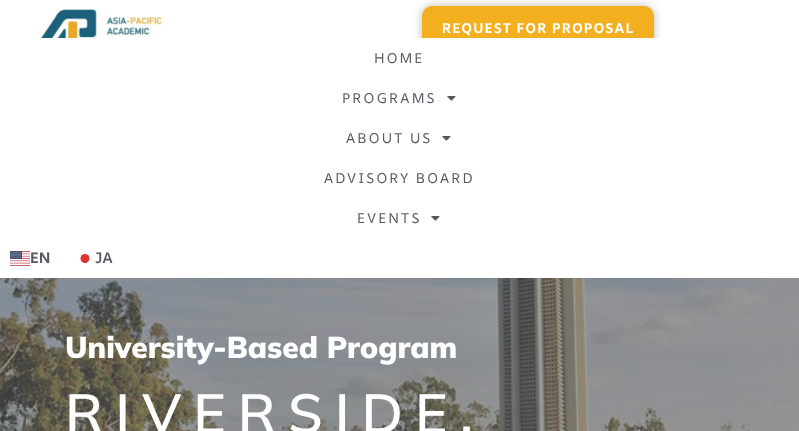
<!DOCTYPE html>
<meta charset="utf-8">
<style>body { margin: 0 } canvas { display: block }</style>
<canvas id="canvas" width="799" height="431"></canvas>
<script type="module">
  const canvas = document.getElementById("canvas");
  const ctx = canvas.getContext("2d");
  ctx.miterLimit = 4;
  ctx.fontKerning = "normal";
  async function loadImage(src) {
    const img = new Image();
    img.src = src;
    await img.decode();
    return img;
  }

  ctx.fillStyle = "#ffffff";
  ctx.fillRect(0, 0, 799, 431);
  ctx.fillStyle = "rgba(0, 0, 0, 0.27)";
  ctx.filter = "blur(5px)";
  ctx.beginPath();
  ctx.roundRect(422, 6, 232, 44, 10);
  ctx.fill();
  ctx.filter = "none";
  ctx.fillStyle = "#f3af1e";
  ctx.beginPath();
  ctx.roundRect(422, 6, 232, 44, 10);
  ctx.fill();
  ctx.letterSpacing = "1px";
  ctx.font = "bold 14px AR One Sans";
  ctx.fillStyle = "#ffffff";
  ctx.fillText("REQUEST FOR PROPOSAL", 442, 33);
  ctx.drawImage(await loadImage("img1.png"), 38, 9, 124, 29);
  ctx.fillRect(413, 38, 250, 21);
  ctx.letterSpacing = "2px";
  ctx.font = "14px AR One Sans";
  ctx.fillStyle = "#54595f";
  ctx.fillText("HOME", 374, 63);
  ctx.fillText("PROGRAMS", 342, 103);
  ctx.drawImage(await loadImage("img2.png"), 447, 96, 9, 5);
  ctx.fillText("ABOUT US", 346, 143);
  ctx.drawImage(await loadImage("img2.png"), 442, 136, 9, 5);
  ctx.fillText("ADVISORY BOARD", 324, 183);
  ctx.fillText("EVENTS", 357, 223);
  ctx.drawImage(await loadImage("img2.png"), 431, 216, 9, 5);
  ctx.drawImage(await loadImage("img3.png"), 10, 251, 20, 15);
  ctx.letterSpacing = "0px";
  ctx.font = "bold 15px AR One Sans";
  ctx.fillText("EN", 30, 263);
  ctx.fillStyle = "#dc3333";
  ctx.beginPath();
  ctx.arc(85, 258.5, 4.5, 0, Math.PI * 2);
  ctx.fill();
  ctx.font = "600 15px AR One Sans";
  ctx.fillStyle = "#54595f";
  ctx.fillText("JA", 95, 263);
  ctx.drawImage(await loadImage("img4.png"), 0, 278, 799, 153);
  ctx.font = "900 30px Mulish";
  ctx.fillStyle = "#ffffff";
  ctx.fillText("University-Based Program", 65, 358);
  ctx.letterSpacing = "12px";
  ctx.font = "600 55px Mulish";
  ctx.fillText("RIVERSIDE,", 65, 433);
</script>
